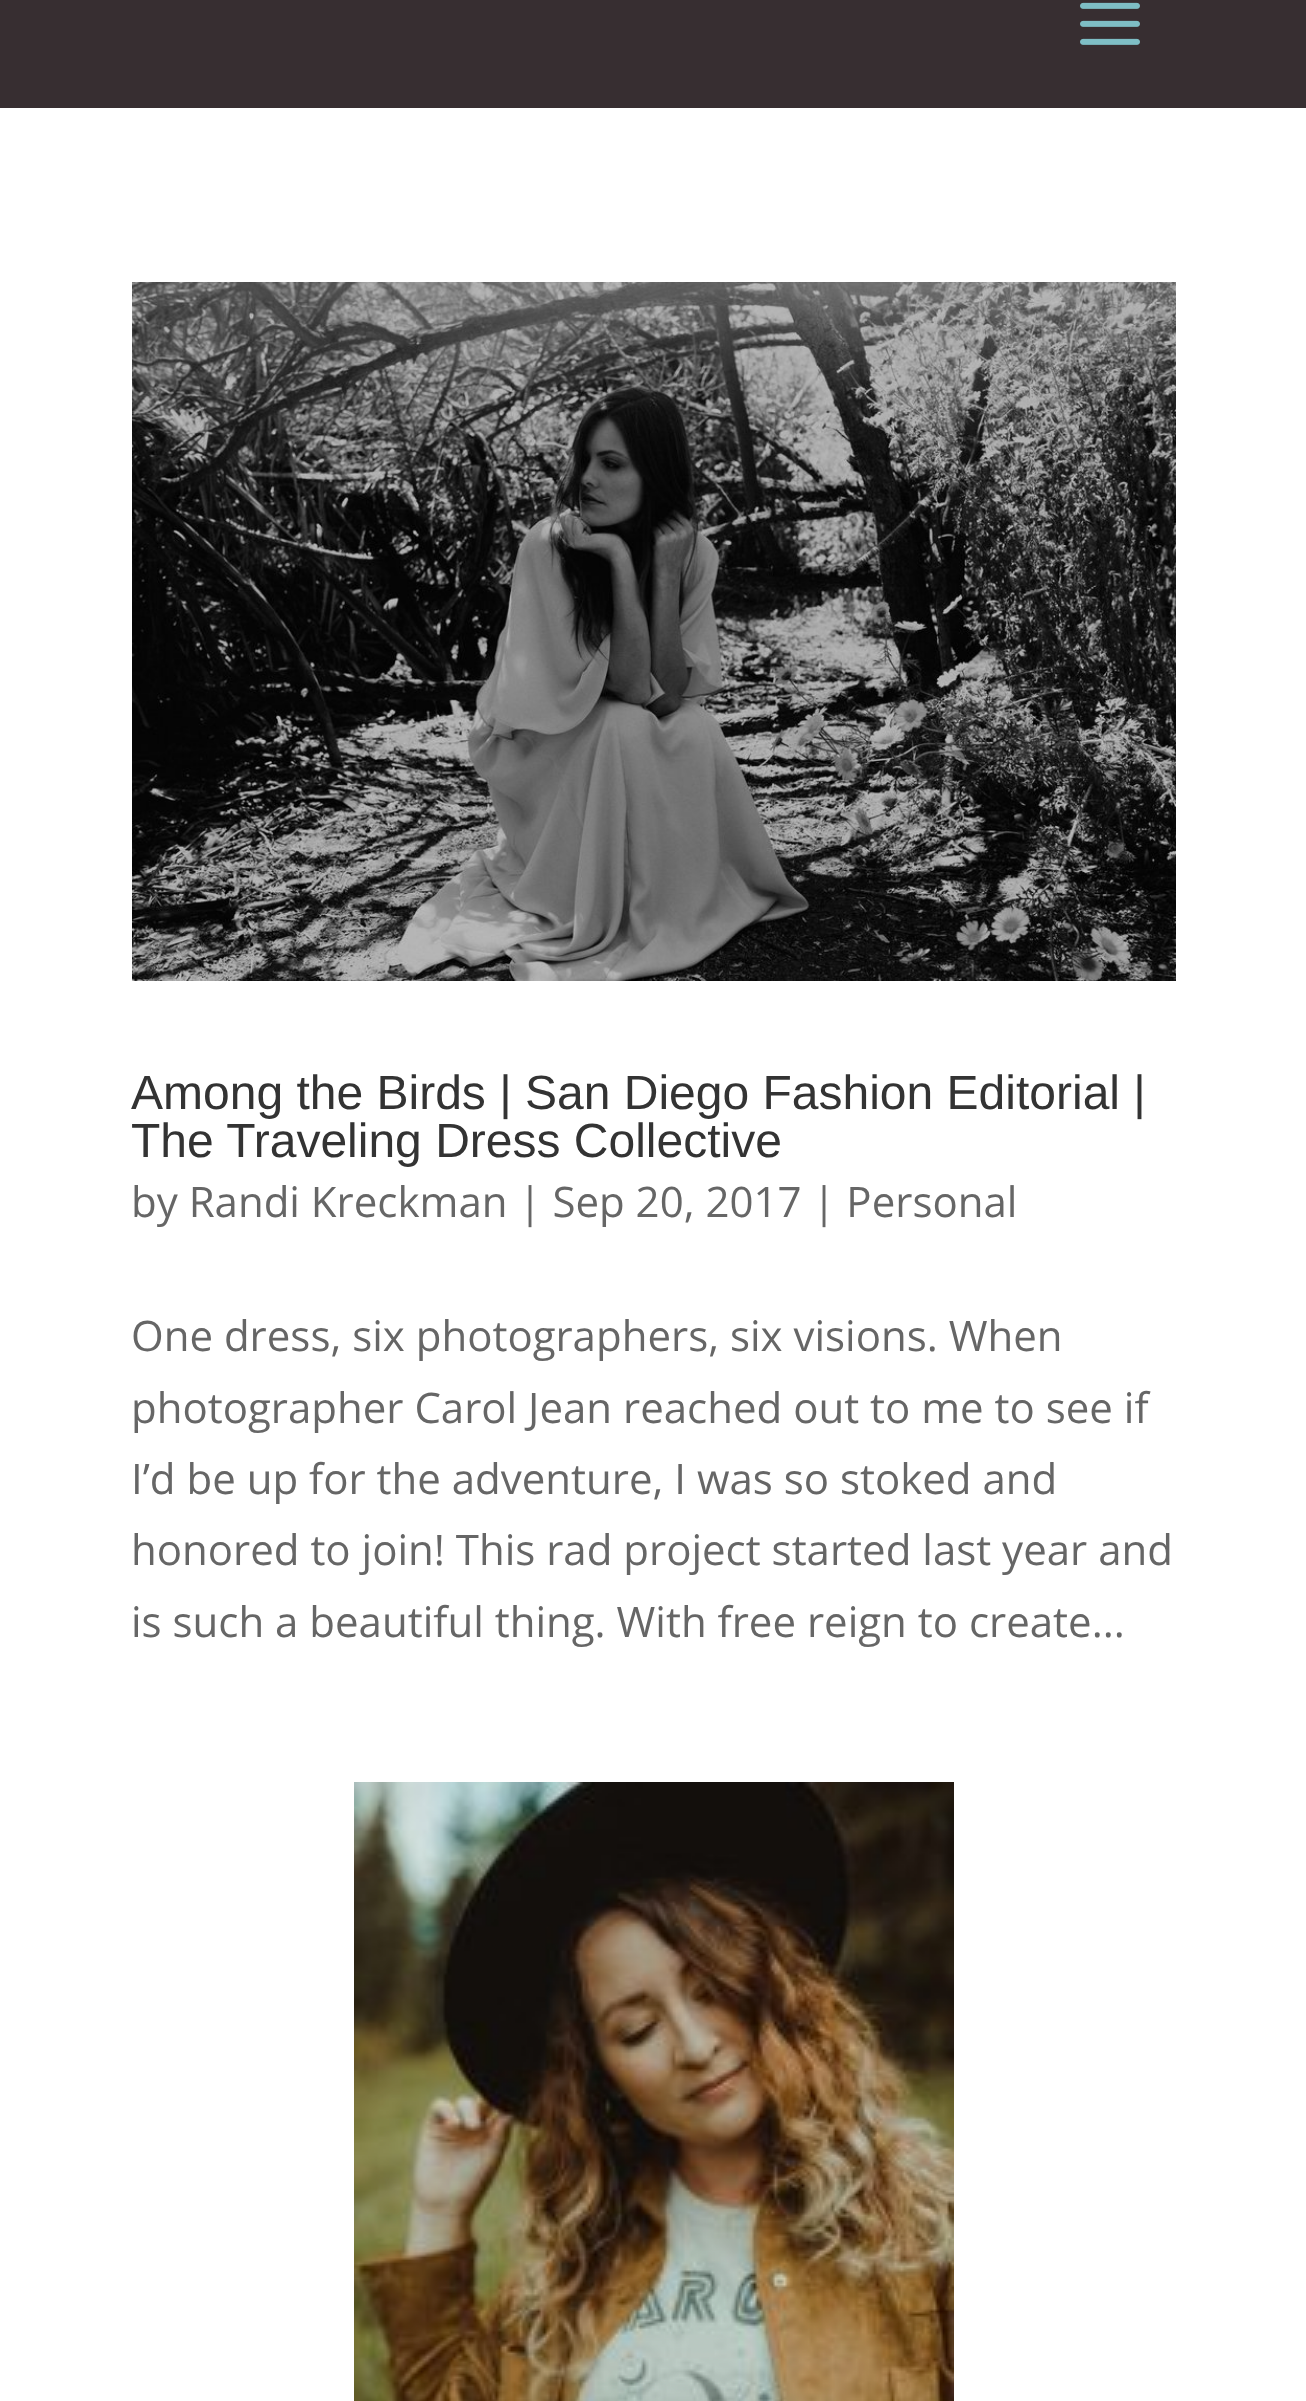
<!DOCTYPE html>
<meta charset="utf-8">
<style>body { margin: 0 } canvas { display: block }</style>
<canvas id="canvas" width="1306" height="2401"></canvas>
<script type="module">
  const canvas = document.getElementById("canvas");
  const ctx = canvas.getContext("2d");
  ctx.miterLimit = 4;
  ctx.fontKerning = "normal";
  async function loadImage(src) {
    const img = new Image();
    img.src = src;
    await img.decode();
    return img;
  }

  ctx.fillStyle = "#ffffff";
  ctx.fillRect(0, 0, 1306, 2401);
  ctx.fillStyle = "#372e31";
  ctx.fillRect(0, 0, 1306, 108);
  ctx.drawImage(await loadImage("img1.png"), 1080, 2, 60, 43);
  ctx.drawImage(await loadImage("img2.png"), 132, 282, 1044, 699);
  ctx.font = "48px Liberation Sans";
  ctx.fillStyle = "#333333";
  ctx.fillText("Among the Birds | San Diego Fashion Editorial |", 131, 1109);
  ctx.fillText("The Traveling Dress Collective", 131, 1157);
  ctx.font = "42px Open Sans";
  ctx.fillStyle = "#666666";
  ctx.fillText("by Randi Kreckman | Sep 20, 2017 | Personal", 131, 1217);
  ctx.fillText("One dress, six photographers, six visions. When", 131, 1351);
  ctx.fillText("photographer Carol Jean reached out to me to see if", 131, 1423);
  ctx.fillText("I’d be up for the adventure, I was so stoked and", 131, 1494);
  ctx.fillText("honored to join! This rad project started last year and", 131, 1565);
  ctx.fillText("is such a beautiful thing. With free reign to create...", 131, 1637);
  ctx.drawImage(await loadImage("img3.png"), 354, 1782, 600, 619);
</script>
